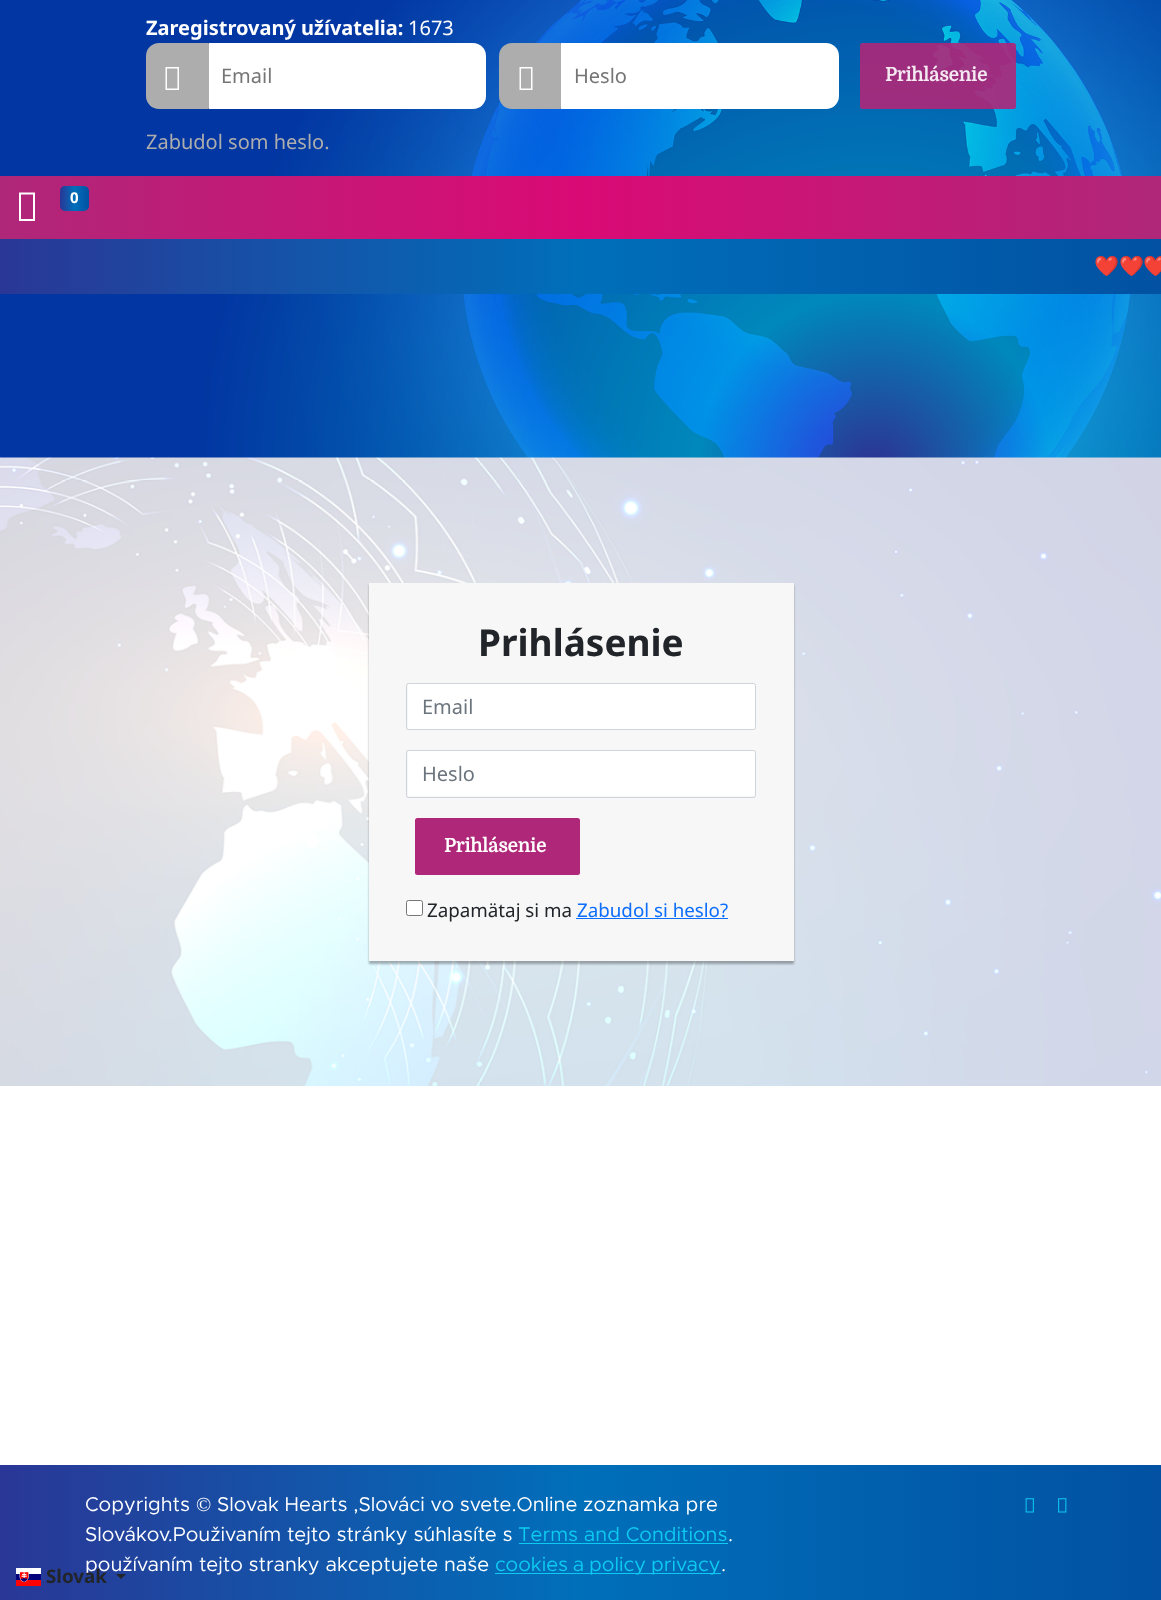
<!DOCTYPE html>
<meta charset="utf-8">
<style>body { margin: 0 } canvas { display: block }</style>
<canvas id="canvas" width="1161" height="1600"></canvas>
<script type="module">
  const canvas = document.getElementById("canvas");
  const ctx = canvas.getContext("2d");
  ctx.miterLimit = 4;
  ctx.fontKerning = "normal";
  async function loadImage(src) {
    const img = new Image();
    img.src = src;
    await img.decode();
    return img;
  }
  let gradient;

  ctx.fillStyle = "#ffffff";
  ctx.fillRect(0, 0, 1161, 1600);
  ctx.drawImage(await loadImage("img2.png"), 0, 457, 1161, 629);
  ctx.drawImage(await loadImage("img1.png"), 0, 0, 1161, 458);
  ctx.font = "bold 20px Noto Sans";
  ctx.fillText("Zaregistrovaný užívatelia:", 146, 35);
  ctx.font = "20px Noto Sans";
  ctx.fillText("1673", 408, 35);
  ctx.fillStyle = "#adadad";
  ctx.beginPath();
  ctx.roundRect(146, 43, 63, 66, [13, 1, 1, 13]);
  ctx.fill();
  ctx.fillStyle = "#ffffff";
  ctx.beginPath();
  ctx.moveTo(165.5, 90);
  ctx.lineTo(165.5, 67);
  ctx.lineTo(179, 67);
  ctx.lineTo(179, 90);
  ctx.closePath();
  ctx.moveTo(167, 88.5);
  ctx.lineTo(177.5, 88.5);
  ctx.lineTo(177.5, 68.5);
  ctx.lineTo(167, 68.5);
  ctx.closePath();
  ctx.fill();
  ctx.beginPath();
  ctx.roundRect(209, 43, 277, 66, [0, 13, 13, 0]);
  ctx.fill();
  ctx.fillStyle = "#757575";
  ctx.fillText("Email", 221, 83);
  ctx.fillStyle = "#adadad";
  ctx.beginPath();
  ctx.roundRect(499, 43, 62, 66, [13, 1, 1, 13]);
  ctx.fill();
  ctx.fillStyle = "#ffffff";
  ctx.beginPath();
  ctx.moveTo(519.5, 90);
  ctx.lineTo(519.5, 67);
  ctx.lineTo(532.5, 67);
  ctx.lineTo(532.5, 90);
  ctx.closePath();
  ctx.moveTo(521, 88.5);
  ctx.lineTo(531, 88.5);
  ctx.lineTo(531, 68.5);
  ctx.lineTo(521, 68.5);
  ctx.closePath();
  ctx.fill();
  ctx.beginPath();
  ctx.roundRect(561, 43, 278, 66, [0, 13, 13, 0]);
  ctx.fill();
  ctx.fillStyle = "#757575";
  ctx.fillText("Heslo", 574, 83);
  ctx.fillStyle = "rgba(175, 39, 121, 0.9)";
  ctx.beginPath();
  ctx.roundRect(860, 43, 156, 66, 2.5);
  ctx.fill();
  ctx.font = "bold 18.75px Domine";
  ctx.fillStyle = "#f5eaf2";
  ctx.fillText("Prihlásenie", 885, 81);
  ctx.font = "20px Noto Sans";
  ctx.fillStyle = "#adadad";
  ctx.fillText("Zabudol som heslo.", 146, 149);
  gradient = ctx.createLinearGradient(0, 208, 1161, 207);
  gradient.addColorStop(0, "#af2779");
  gradient.addColorStop(0.5, "#da0a75");
  gradient.addColorStop(1, "#af2779");
  ctx.fillStyle = gradient;
  ctx.fillRect(0, 176, 1161, 63);
  ctx.fillStyle = "#ffffff";
  ctx.beginPath();
  ctx.moveTo(19, 221);
  ctx.lineTo(19, 192.5);
  ctx.lineTo(35, 192.5);
  ctx.lineTo(35, 221);
  ctx.closePath();
  ctx.moveTo(21, 219);
  ctx.lineTo(33, 219);
  ctx.lineTo(33, 194.5);
  ctx.lineTo(21, 194.5);
  ctx.closePath();
  ctx.fill();
  gradient = ctx.createLinearGradient(60, 199, 89, 199);
  gradient.addColorStop(0, "#2a3796");
  gradient.addColorStop(0.5, "#006fba");
  gradient.addColorStop(1, "#0251a2");
  ctx.fillStyle = gradient;
  ctx.beginPath();
  ctx.roundRect(60, 186, 29, 25, 5);
  ctx.fill();
  ctx.font = "bold 15px Noto Sans";
  ctx.fillStyle = "#ffffff";
  ctx.fillText("0", 70, 203);
  gradient = ctx.createLinearGradient(0, 266, 1161, 266);
  gradient.addColorStop(0, "#2a3796");
  gradient.addColorStop(0.5, "#006fba");
  gradient.addColorStop(1, "#0251a2");
  ctx.fillStyle = gradient;
  ctx.fillRect(0, 239, 1161, 55);
  ctx.font = "bold 20px Noto Color Emoji";
  ctx.fillStyle = "#ffffff";
  ctx.fillText("❤️❤️❤️", 1094, 273);
  ctx.fillStyle = "rgba(0, 0, 0, 0.3)";
  ctx.filter = "blur(1px)";
  ctx.beginPath();
  ctx.rect(369, 585, 425, 379);
  ctx.fill();
  ctx.filter = "none";
  ctx.fillStyle = "#f7f7f7";
  ctx.fillRect(369, 583, 425, 378);
  ctx.font = "bold 37px Noto Sans";
  ctx.fillStyle = "#212529";
  ctx.fillText("Prihlásenie", 478, 656);
  ctx.fillStyle = "#ffffff";
  ctx.beginPath();
  ctx.roundRect(408, 684, 347, 45, 1);
  ctx.fill();
  ctx.beginPath();
  ctx.roundRect(406.5, 683.5, 349, 46, 2);
  ctx.strokeStyle = "#ced4da";
  ctx.stroke();
  ctx.font = "20px Noto Sans";
  ctx.fillStyle = "#6c757d";
  ctx.fillText("Email", 422, 714);
  ctx.fillStyle = "#ffffff";
  ctx.beginPath();
  ctx.roundRect(408, 751, 347, 45, 1);
  ctx.fill();
  ctx.beginPath();
  ctx.roundRect(406.5, 750.5, 349, 47, 2);
  ctx.stroke();
  ctx.fillStyle = "#6c757d";
  ctx.fillText("Heslo", 422, 781);
  ctx.fillStyle = "#af2779";
  ctx.beginPath();
  ctx.roundRect(415, 818, 165, 57, 2.5);
  ctx.fill();
  ctx.font = "bold 18.75px Domine";
  ctx.fillStyle = "#ffffff";
  ctx.fillText("Prihlásenie", 444, 852);
  ctx.beginPath();
  ctx.roundRect(406.5, 900.5, 16, 15, 2);
  ctx.fill();
  ctx.strokeStyle = "#767676";
  ctx.stroke();
  ctx.font = "18.75px Noto Sans";
  ctx.fillStyle = "#212529";
  ctx.fillText("Zapamätaj si ma", 427, 917);
  ctx.fillStyle = "#0d6efd";
  ctx.fillText("Zabudol si heslo?", 577, 917);
  ctx.fillRect(576, 918, 152, 1);
  gradient = ctx.createLinearGradient(0, 1545, 1161, 1545);
  gradient.addColorStop(0, "#2a3796");
  gradient.addColorStop(0.5, "#006fba");
  gradient.addColorStop(1, "#0251a2");
  ctx.fillStyle = gradient;
  ctx.fillRect(0, 1465, 1161, 135);
  ctx.drawImage(await loadImage("img3.png"), 16, 1568, 25, 18);
  ctx.font = "20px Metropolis";
  ctx.fillStyle = "#ffffff";
  ctx.fillText("používaním tejto stranky akceptujete naše", 85, 1571);
  ctx.font = "bold 18.75px Noto Sans";
  ctx.fillStyle = "#212529";
  ctx.fillText("Slovak", 46, 1583);
  ctx.beginPath();
  ctx.moveTo(116, 1574);
  ctx.lineTo(126, 1574);
  ctx.lineTo(121, 1579);
  ctx.closePath();
  ctx.fill();
  ctx.font = "20px Metropolis";
  ctx.fillStyle = "#ffffff";
  ctx.fillText("Copyrights", 85, 1511);
  ctx.font = "20px Liberation Serif";
  ctx.fillText("©", 196, 1511);
  ctx.font = "20px Metropolis";
  ctx.fillText("Slovak Hearts ,Slováci vo svete.Online zoznamka pre", 217, 1511);
  ctx.fillText("Slovákov.Použivaním tejto stránky súhlasíte s", 85, 1541);
  ctx.fillStyle = "#0dcaf0";
  ctx.fillText("Terms and Conditions", 518, 1541);
  ctx.fillRect(519, 1543, 209, 1);
  ctx.fillStyle = "#ffffff";
  ctx.fillText(".", 728, 1541);
  ctx.fillStyle = "#0dcaf0";
  ctx.fillRect(495, 1573, 226, 1);
  ctx.wordSpacing = "-1px";
  ctx.fillText("cookies a policy privacy", 495, 1571);
  ctx.wordSpacing = "0px";
  ctx.fillStyle = "#ffffff";
  ctx.fillText(".", 721, 1571);
  ctx.drawImage(await loadImage("img4.png"), 1025, 1498, 9, 15);
  ctx.drawImage(await loadImage("img5.png"), 1058, 1498, 9, 15);
</script>
